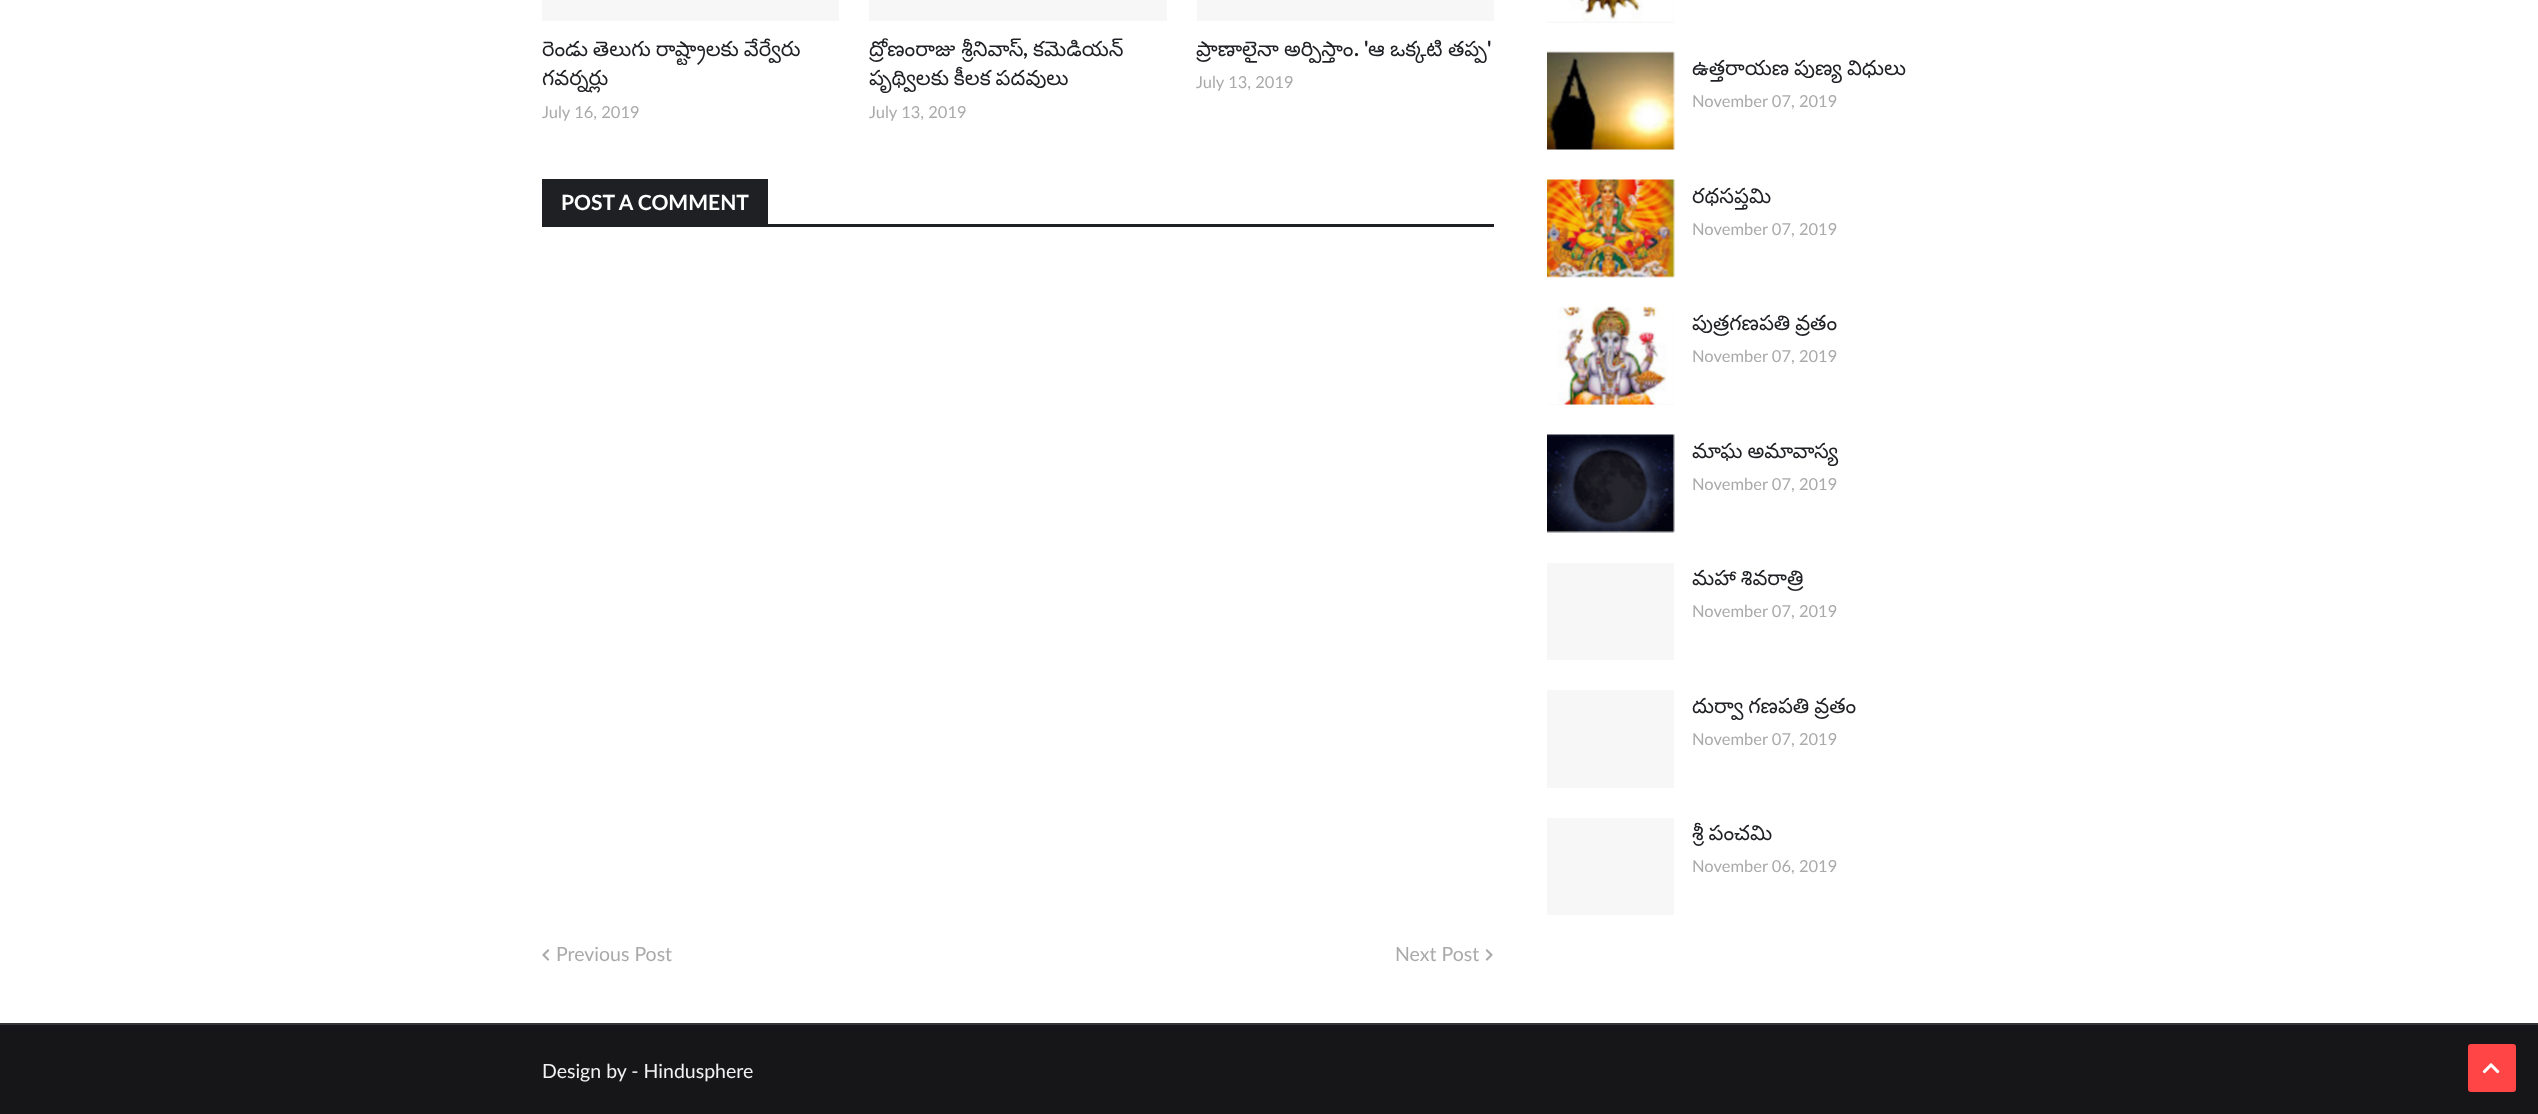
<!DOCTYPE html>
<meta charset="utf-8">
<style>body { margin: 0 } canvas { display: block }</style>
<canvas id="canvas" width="2538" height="1114"></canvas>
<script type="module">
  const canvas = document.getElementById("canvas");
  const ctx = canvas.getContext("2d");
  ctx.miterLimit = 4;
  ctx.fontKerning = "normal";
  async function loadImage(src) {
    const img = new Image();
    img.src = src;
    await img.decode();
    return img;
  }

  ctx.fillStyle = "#ffffff";
  ctx.fillRect(0, 0, 2538, 1114);
  ctx.fillStyle = "#f7f7f7";
  ctx.fillRect(542, 0, 297, 21);
  ctx.wordSpacing = "-1px";
  ctx.font = "21px Noto Sans Telugu";
  ctx.fillStyle = "#1f2024";
  ctx.fillText("రెండు తెలుగు రాష్ట్రాలకు వేర్వేరు", 542, 56);
  ctx.wordSpacing = "0px";
  ctx.fillText("గవర్నర్లు", 542, 85);
  ctx.font = "16.5px Lato";
  ctx.fillStyle = "#aaaaaa";
  ctx.fillText("July 16, 2019", 542, 118);
  ctx.fillStyle = "#f7f7f7";
  ctx.fillRect(869, 0, 298, 21);
  ctx.font = "21px Noto Sans Telugu";
  ctx.fillStyle = "#1f2024";
  ctx.fillText("ద్రోణంరాజు శ్రీనివాస్", 869, 56);
  ctx.font = "bold 21px Lato";
  ctx.fillText(",", 1023, 56);
  ctx.font = "21px Noto Sans Telugu";
  ctx.fillText("కమెడియన్", 1033, 56);
  ctx.wordSpacing = "-1px";
  ctx.fillText("పృథ్విలకు కీలక పదవులు", 869, 85);
  ctx.wordSpacing = "0px";
  ctx.font = "16.5px Lato";
  ctx.fillStyle = "#aaaaaa";
  ctx.fillText("July 13, 2019", 869, 118);
  ctx.fillStyle = "#f7f7f7";
  ctx.fillRect(1197, 0, 297, 21);
  ctx.font = "21px Noto Sans Telugu";
  ctx.fillStyle = "#1f2024";
  ctx.fillText("ప్రాణాలైనా", 1196, 56);
  ctx.fillText("అర్పిస్తాం", 1284, 56);
  ctx.font = "bold 21px Lato";
  ctx.fillText(". '", 1354, 56);
  ctx.font = "21px Noto Sans Telugu";
  ctx.fillText("ఆ", 1368, 56);
  ctx.fillText("ఒక్కటి", 1390, 56);
  ctx.fillText("తప్ప", 1448, 56);
  ctx.font = "bold 21px Lato";
  ctx.fillText("'", 1487, 56);
  ctx.font = "16.5px Lato";
  ctx.fillStyle = "#aaaaaa";
  ctx.fillText("July 13, 2019", 1196, 88);
  ctx.fillStyle = "#1f2024";
  ctx.fillRect(542, 224, 952, 3);
  ctx.fillRect(542, 179, 226, 45);
  ctx.font = "bold 21px 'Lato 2'";
  ctx.fillStyle = "#ffffff";
  ctx.fillText("POST A COMMENT", 561, 210);
  ctx.drawImage(await loadImage("img1.png"), 542, 949, 8, 12);
  ctx.font = "19.5px Lato";
  ctx.fillStyle = "#aaaaaa";
  ctx.fillText("Previous Post", 556, 961);
  ctx.fillText("Next Post", 1395, 961);
  ctx.drawImage(await loadImage("img2.png"), 1485, 949, 8, 12);
  ctx.fillStyle = "#f7f7f7";
  ctx.fillRect(1547, 0, 127, 23);
  ctx.drawImage(await loadImage("img3.png"), 1547, 0, 127, 22);
  ctx.fillRect(1547, 53, 127, 97);
  ctx.drawImage(await loadImage("img4.png"), 1547, 51, 128, 99);
  ctx.wordSpacing = "-1px";
  ctx.font = "21px Noto Sans Telugu";
  ctx.fillStyle = "#1f2024";
  ctx.fillText("ఉత్తరాయణ పుణ్య విధులు", 1692, 75);
  ctx.wordSpacing = "0px";
  ctx.font = "16.5px Lato";
  ctx.fillStyle = "#aaaaaa";
  ctx.fillText("November 07, 2019", 1692, 107);
  ctx.fillStyle = "#f7f7f7";
  ctx.fillRect(1547, 180, 127, 98);
  ctx.drawImage(await loadImage("img5.png"), 1547, 179, 128, 99);
  ctx.font = "21px Noto Sans Telugu";
  ctx.fillStyle = "#1f2024";
  ctx.fillText("రథసప్తమి", 1692, 203);
  ctx.font = "16.5px Lato";
  ctx.fillStyle = "#aaaaaa";
  ctx.fillText("November 07, 2019", 1692, 235);
  ctx.fillStyle = "#f7f7f7";
  ctx.fillRect(1547, 308, 127, 97);
  ctx.drawImage(await loadImage("img6.png"), 1547, 306, 127, 99);
  ctx.wordSpacing = "-1px";
  ctx.font = "21px Noto Sans Telugu";
  ctx.fillStyle = "#1f2024";
  ctx.fillText("పుత్రగణపతి వ్రతం", 1692, 330);
  ctx.wordSpacing = "0px";
  ctx.font = "16.5px Lato";
  ctx.fillStyle = "#aaaaaa";
  ctx.fillText("November 07, 2019", 1692, 362);
  ctx.fillStyle = "#f7f7f7";
  ctx.fillRect(1547, 435, 127, 98);
  ctx.drawImage(await loadImage("img7.png"), 1547, 434, 128, 99);
  ctx.wordSpacing = "-1px";
  ctx.font = "21px Noto Sans Telugu";
  ctx.fillStyle = "#1f2024";
  ctx.fillText("మాఘ అమావాస్య", 1692, 458);
  ctx.wordSpacing = "0px";
  ctx.font = "16.5px Lato";
  ctx.fillStyle = "#aaaaaa";
  ctx.fillText("November 07, 2019", 1692, 490);
  ctx.fillStyle = "#f7f7f7";
  ctx.fillRect(1547, 563, 127, 97);
  ctx.wordSpacing = "-1px";
  ctx.font = "21px Noto Sans Telugu";
  ctx.fillStyle = "#1f2024";
  ctx.fillText("మహా శివరాత్రి", 1692, 585);
  ctx.wordSpacing = "0px";
  ctx.font = "16.5px Lato";
  ctx.fillStyle = "#aaaaaa";
  ctx.fillText("November 07, 2019", 1692, 617);
  ctx.fillStyle = "#f7f7f7";
  ctx.fillRect(1547, 690, 127, 98);
  ctx.save();
  ctx.beginPath();
  ctx.rect(1692, 690, 305, 63);
  ctx.clip();
  ctx.wordSpacing = "-1px";
  ctx.font = "21px Noto Sans Telugu";
  ctx.fillStyle = "#1f2024";
  ctx.fillText("దుర్వా గణపతి వ్రతం", 1692, 713);
  ctx.restore();
  ctx.fillStyle = "#aaaaaa";
  ctx.fillText("November 07, 2019", 1692, 745);
  ctx.fillStyle = "#f7f7f7";
  ctx.fillRect(1547, 818, 127, 97);
  ctx.save();
  ctx.beginPath();
  ctx.rect(1692, 818, 305, 63);
  ctx.clip();
  ctx.wordSpacing = "-1px";
  ctx.font = "21px Noto Sans Telugu";
  ctx.fillStyle = "#1f2024";
  ctx.fillText("శ్రీ పంచమి", 1692, 840);
  ctx.restore();
  ctx.fillStyle = "#aaaaaa";
  ctx.fillText("November 06, 2019", 1692, 872);
  ctx.fillStyle = "#343538";
  ctx.fillRect(0, 1023, 2538, 2);
  ctx.fillStyle = "#161619";
  ctx.fillRect(0, 1025, 2538, 89);
  ctx.font = "19.5px Lato";
  ctx.fillStyle = "#f2f2f2";
  ctx.fillText("Design by - Hindusphere", 542, 1078);
  ctx.fillStyle = "#ff4545";
  ctx.beginPath();
  ctx.roundRect(2468, 1044, 48, 48, 3);
  ctx.fill();
  ctx.drawImage(await loadImage("img8.png"), 2482, 1063, 18, 11);
</script>
